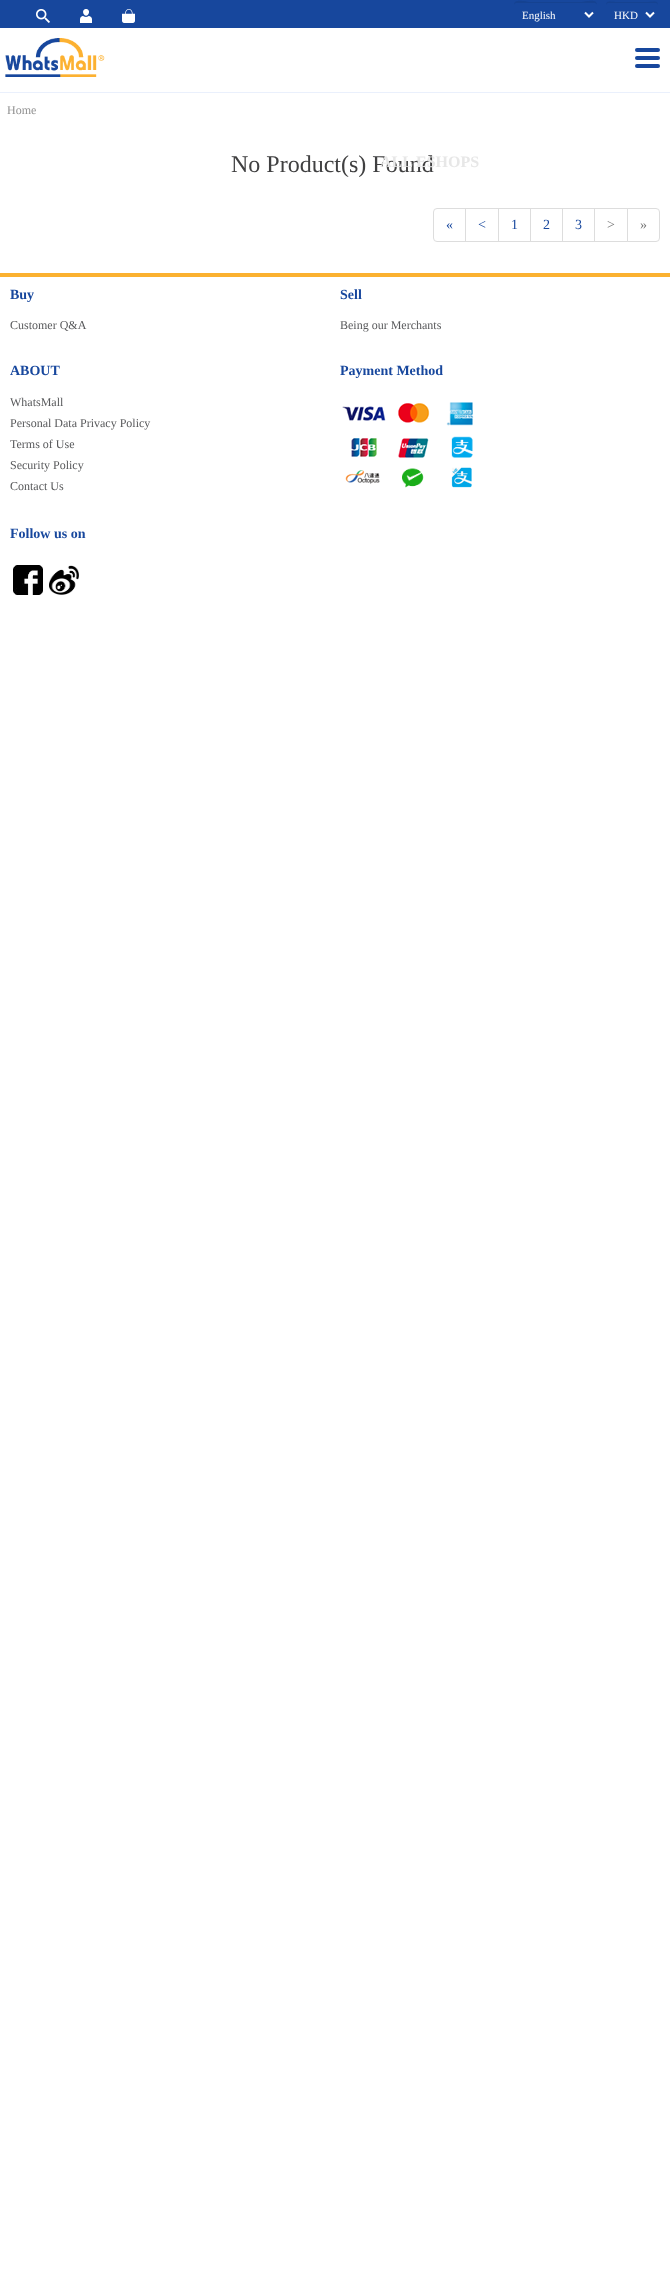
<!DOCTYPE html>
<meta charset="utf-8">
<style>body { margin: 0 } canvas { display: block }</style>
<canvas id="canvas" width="670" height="2288"></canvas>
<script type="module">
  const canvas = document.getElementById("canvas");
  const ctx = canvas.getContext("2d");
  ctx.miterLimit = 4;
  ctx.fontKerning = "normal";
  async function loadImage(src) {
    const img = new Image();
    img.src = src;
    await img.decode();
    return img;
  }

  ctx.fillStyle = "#ffffff";
  ctx.fillRect(0, 0, 670, 2288);
  ctx.fillStyle = "#eaf0fc";
  ctx.fillRect(0, 92, 670, 1);
  ctx.fillStyle = "#17479d";
  ctx.fillRect(0, 0, 670, 28);
  ctx.drawImage(await loadImage("img1.png"), 36, 9, 14, 14);
  ctx.drawImage(await loadImage("img2.png"), 80, 9, 12, 14);
  ctx.drawImage(await loadImage("img3.png"), 122, 9, 13, 14);
  ctx.fillStyle = "#154291";
  ctx.beginPath();
  ctx.moveTo(516, 3);
  ctx.lineTo(595, 3);
  ctx.bezierCurveTo(596, 3, 597, 4, 597, 5);
  ctx.bezierCurveTo(597, -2, 585, 2, 582, 2);
  ctx.lineTo(529, 2);
  ctx.bezierCurveTo(526, 2, 514, -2, 514, 5);
  ctx.bezierCurveTo(514, 4, 515, 3, 516, 3);
  ctx.closePath();
  ctx.fill();
  ctx.beginPath();
  ctx.moveTo(585, 12.5);
  ctx.lineTo(589, 16.5);
  ctx.lineTo(593, 12.5);
  ctx.strokeStyle = "#ffffff";
  ctx.lineWidth = 2;
  ctx.stroke();
  ctx.font = "11px Liberation Serif";
  ctx.fillStyle = "#ffffff";
  ctx.fillText("English", 522, 19);
  ctx.fillStyle = "#154291";
  ctx.beginPath();
  ctx.moveTo(608, 3);
  ctx.lineTo(656, 3);
  ctx.bezierCurveTo(657, 3, 658, 4, 658, 5);
  ctx.bezierCurveTo(658, 0, 652, 2, 648, 2);
  ctx.lineTo(616, 2);
  ctx.bezierCurveTo(612, 2, 606, 0, 606, 5);
  ctx.bezierCurveTo(606, 4, 607, 3, 608, 3);
  ctx.closePath();
  ctx.fill();
  ctx.beginPath();
  ctx.moveTo(646, 12.5);
  ctx.lineTo(650, 16.5);
  ctx.lineTo(654, 12.5);
  ctx.stroke();
  ctx.fillStyle = "#ffffff";
  ctx.fillText("HKD", 614, 19);
  ctx.drawImage(await loadImage("img4.png"), 5, 38, 100, 39);
  ctx.fillStyle = "#17479d";
  ctx.beginPath();
  ctx.roundRect(635, 48, 25, 4, 2);
  ctx.fill();
  ctx.beginPath();
  ctx.roundRect(635, 56, 25, 4, 2);
  ctx.fill();
  ctx.beginPath();
  ctx.roundRect(635, 64, 25, 4, 2);
  ctx.fill();
  ctx.font = "24px Liberation Serif";
  ctx.fillStyle = "#404041";
  ctx.fillText("No Product(s) Found", 231, 172);
  ctx.font = "bold 16px Liberation Serif";
  ctx.fillStyle = "#e7e7e7";
  ctx.fillText("ALL ESHOPS", 380, 167);
  ctx.font = "12px Liberation Serif";
  ctx.fillStyle = "#919191";
  ctx.fillText("Home", 7, 114);
  ctx.beginPath();
  ctx.roundRect(433.5, 208.5, 32, 33, [3.5, 0, 0, 3.5]);
  ctx.strokeStyle = "#dddddd";
  ctx.lineWidth = 1;
  ctx.stroke();
  ctx.font = "14px Liberation Serif";
  ctx.fillStyle = "#17479d";
  ctx.fillText("«", 446, 229);
  ctx.strokeRect(465.5, 208.5, 33, 33);
  ctx.fillText("<", 478, 229);
  ctx.strokeRect(498.5, 208.5, 32, 33);
  ctx.fillText("1", 511, 229);
  ctx.strokeRect(530.5, 208.5, 32, 33);
  ctx.fillText("2", 543, 229);
  ctx.strokeRect(562.5, 208.5, 32, 33);
  ctx.fillText("3", 575, 229);
  ctx.strokeRect(594.5, 208.5, 33, 33);
  ctx.fillStyle = "#777777";
  ctx.fillText(">", 607, 229);
  ctx.fillStyle = "#ffffff";
  ctx.beginPath();
  ctx.roundRect(627.5, 208.5, 32, 33, [0, 3.5, 3.5, 0]);
  ctx.fill();
  ctx.stroke();
  ctx.fillStyle = "#777777";
  ctx.fillText("»", 640, 229);
  ctx.fillStyle = "#fbb130";
  ctx.fillRect(0, 273, 670, 4);
  ctx.font = "bold 14px Liberation Serif";
  ctx.fillStyle = "#17479d";
  ctx.fillText("Buy", 10, 299);
  ctx.font = "12px Liberation Serif";
  ctx.fillStyle = "#58595b";
  ctx.fillText("Customer Q&A", 10, 329);
  ctx.font = "bold 14px Liberation Serif";
  ctx.fillStyle = "#17479d";
  ctx.fillText("Sell", 340, 299);
  ctx.font = "12px Liberation Serif";
  ctx.fillStyle = "#58595b";
  ctx.fillText("Being our Merchants", 340, 329);
  ctx.font = "bold 14px Liberation Serif";
  ctx.fillStyle = "#17479d";
  ctx.fillText("ABOUT", 10, 375);
  ctx.font = "12px Liberation Serif";
  ctx.fillStyle = "#58595b";
  ctx.fillText("WhatsMall", 10, 406);
  ctx.fillText("Personal Data Privacy Policy", 10, 427);
  ctx.fillText("Terms of Use", 10, 448);
  ctx.fillText("Security Policy", 10, 469);
  ctx.fillText("Contact Us", 10, 490);
  ctx.font = "bold 14px Liberation Serif";
  ctx.fillStyle = "#17479d";
  ctx.fillText("Payment Method", 340, 375);
  ctx.drawImage(await loadImage("img5.png"), 342, 402, 132, 86);
  ctx.fillText("Follow us on", 10, 538);
  ctx.drawImage(await loadImage("img6.png"), 13, 565, 30, 30);
  ctx.drawImage(await loadImage("img7.png"), 49, 565, 30, 30);
</script>
